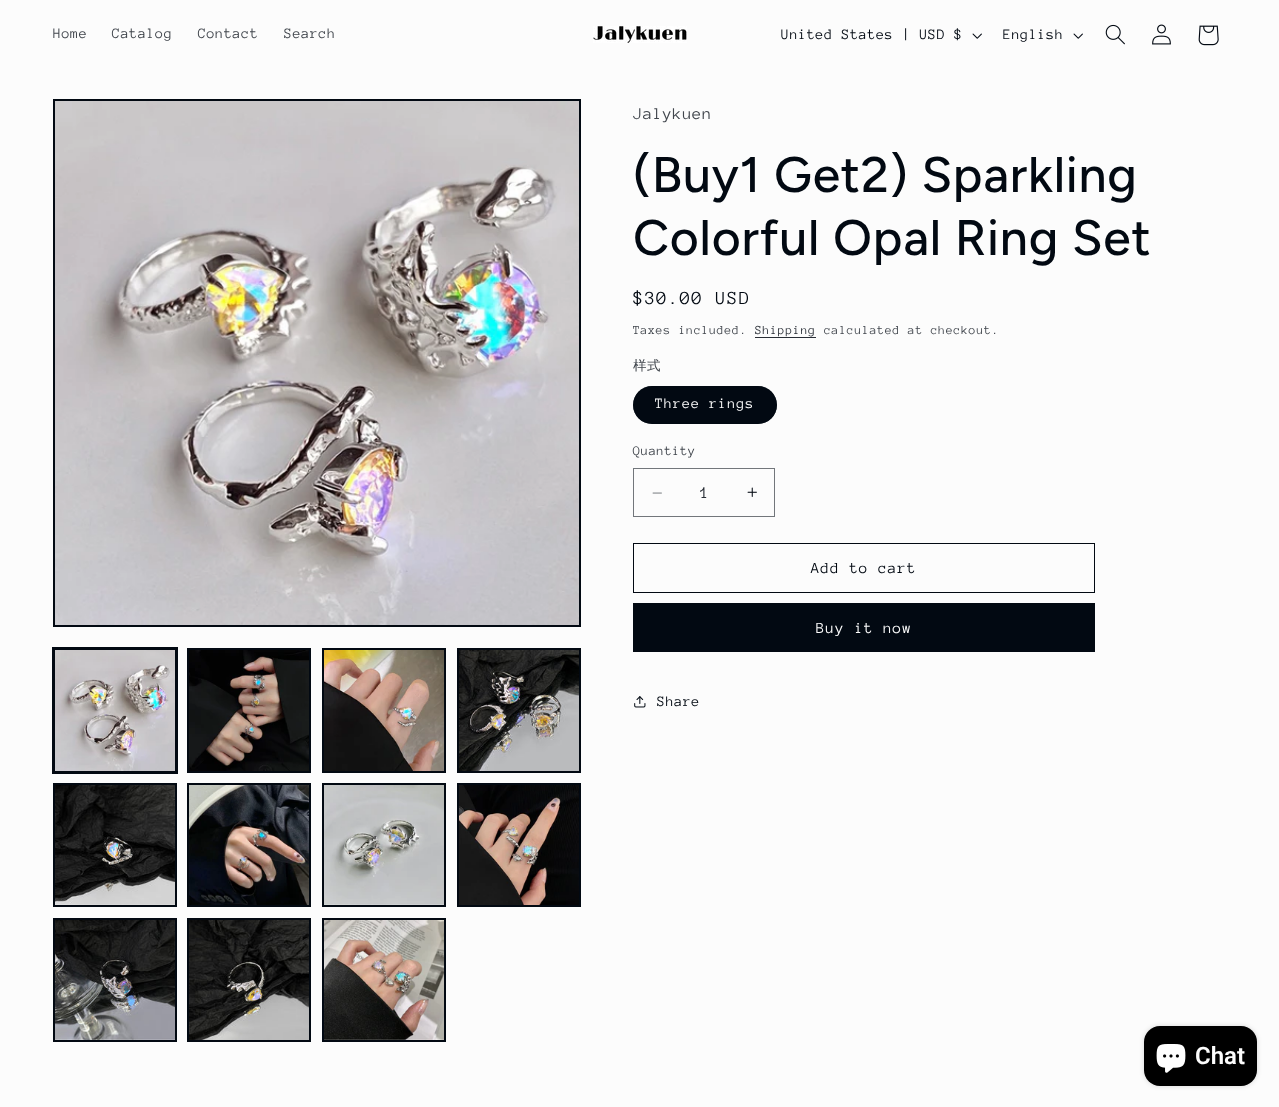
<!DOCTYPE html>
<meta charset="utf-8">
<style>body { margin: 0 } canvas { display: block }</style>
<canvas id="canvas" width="1279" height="1107"></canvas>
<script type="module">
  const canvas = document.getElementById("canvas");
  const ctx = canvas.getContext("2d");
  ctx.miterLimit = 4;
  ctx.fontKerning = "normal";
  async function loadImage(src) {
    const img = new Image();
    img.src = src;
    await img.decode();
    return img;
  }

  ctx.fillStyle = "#fcfcfc";
  ctx.fillRect(0, 0, 1279, 1107);
  ctx.letterSpacing = "0.6px";
  ctx.font = "14.75px Anonymous Pro";
  ctx.fillStyle = "#41464d";
  ctx.fillText("Home", 53, 38);
  ctx.fillText("Catalog", 112, 38);
  ctx.fillText("Contact", 198, 38);
  ctx.fillText("Search", 284, 38);
  ctx.drawImage(await loadImage("img1.png"), 593, 26, 94, 17);
  ctx.fillStyle = "#020912";
  ctx.fillText("United States | USD $", 781, 39);
  ctx.drawImage(await loadImage("img2.png"), 972, 33, 10, 6);
  ctx.fillText("English", 1003, 39);
  ctx.drawImage(await loadImage("img2.png"), 1073, 33, 10, 6);
  ctx.drawImage(await loadImage("img3.png"), 1105, 24, 20, 21);
  ctx.drawImage(await loadImage("img4.png"), 1152, 24, 19, 21);
  ctx.drawImage(await loadImage("img5.png"), 1198, 25, 21, 21);
  ctx.strokeStyle = "#020912";
  ctx.lineWidth = 2;
  ctx.strokeRect(54, 100, 526, 526);
  ctx.drawImage(await loadImage("img6.png"), 55, 101, 524, 524);
  ctx.lineWidth = 1;
  ctx.strokeRect(52.5, 647.5, 125, 126);
  ctx.lineWidth = 2;
  ctx.strokeRect(54, 649, 122, 123);
  ctx.drawImage(await loadImage("img7.png"), 55, 650, 120, 121);
  ctx.strokeRect(188, 649, 122, 123);
  ctx.drawImage(await loadImage("img8.png"), 189, 650, 120, 121);
  ctx.strokeRect(323, 649, 122, 123);
  ctx.drawImage(await loadImage("img9.png"), 324, 650, 120, 121);
  ctx.strokeRect(458, 649, 122, 123);
  ctx.drawImage(await loadImage("img10.png"), 459, 650, 120, 121);
  ctx.strokeRect(54, 784, 122, 122);
  ctx.drawImage(await loadImage("img11.png"), 55, 785, 120, 120);
  ctx.strokeRect(188, 784, 122, 122);
  ctx.drawImage(await loadImage("img12.png"), 189, 785, 120, 120);
  ctx.strokeRect(323, 784, 122, 122);
  ctx.drawImage(await loadImage("img13.png"), 324, 785, 120, 120);
  ctx.strokeRect(458, 784, 122, 122);
  ctx.drawImage(await loadImage("img14.png"), 459, 785, 120, 120);
  ctx.strokeRect(54, 919, 122, 122);
  ctx.drawImage(await loadImage("img15.png"), 55, 920, 120, 120);
  ctx.strokeRect(188, 919, 122, 122);
  ctx.drawImage(await loadImage("img16.png"), 189, 920, 120, 120);
  ctx.strokeRect(323, 919, 122, 122);
  ctx.drawImage(await loadImage("img17.png"), 324, 920, 120, 120);
  ctx.font = "17px Anonymous Pro";
  ctx.fillStyle = "#41464d";
  ctx.fillText("Jalykuen", 633, 119);
  ctx.letterSpacing = "0.75px";
  ctx.font = "500 50px Figtree";
  ctx.fillStyle = "#020912";
  ctx.fillText("(Buy1 Get2) Sparkling", 633, 192);
  ctx.fillText("Colorful Opal Ring Set", 633, 255);
  ctx.letterSpacing = "1.4px";
  ctx.font = "19px Anonymous Pro";
  ctx.fillText("$30.00 USD", 633, 304);
  ctx.letterSpacing = "0.75px";
  ctx.font = "12.6px Anonymous Pro";
  ctx.fillStyle = "#41464d";
  ctx.fillText("Taxes included.", 633, 334);
  ctx.fillStyle = "#282d35";
  ctx.fillText("Shipping", 755, 334);
  ctx.fillRect(755, 337, 61, 1);
  ctx.fillStyle = "#41464d";
  ctx.fillText("calculated at checkout.", 824, 334);
  ctx.letterSpacing = "0.5px";
  ctx.font = "500 13.5px WenQuanYi Zen Hei";
  ctx.fillText("样式", 633, 370);
  ctx.fillStyle = "#020912";
  ctx.beginPath();
  ctx.roundRect(633, 386, 144, 38, 19);
  ctx.fill();
  ctx.beginPath();
  ctx.roundRect(633.5, 386.5, 143, 37, 18.5);
  ctx.strokeStyle = "rgba(2, 9, 18, 0.55)";
  ctx.lineWidth = 1;
  ctx.stroke();
  ctx.letterSpacing = "1px";
  ctx.font = "14.75px Anonymous Pro";
  ctx.fillStyle = "#fcfcfc";
  ctx.fillText("Three rings", 655, 408);
  ctx.letterSpacing = "0.5px";
  ctx.font = "13.5px Anonymous Pro";
  ctx.fillStyle = "#41464d";
  ctx.fillText("Quantity", 633, 455);
  ctx.drawImage(await loadImage("img18.png"), 652, 492, 10, 2);
  ctx.drawImage(await loadImage("img19.png"), 747, 487, 10, 10);
  ctx.strokeStyle = "#72767b";
  ctx.strokeRect(633.5, 468.5, 141, 48);
  ctx.letterSpacing = "0px";
  ctx.font = "17px Anonymous Pro";
  ctx.fillStyle = "#282d35";
  ctx.fillText("1", 700, 498);
  ctx.strokeStyle = "#020912";
  ctx.strokeRect(633.5, 543.5, 461, 49);
  ctx.letterSpacing = "1px";
  ctx.font = "15.75px Anonymous Pro";
  ctx.fillStyle = "#020912";
  ctx.fillText("Add to cart", 811, 573);
  ctx.fillRect(633, 603, 462, 49);
  ctx.fillStyle = "#fcfcfc";
  ctx.fillText("Buy it now", 816, 633);
  ctx.drawImage(await loadImage("img20.png"), 634, 696, 12, 12);
  ctx.letterSpacing = "0.6px";
  ctx.font = "14.75px Anonymous Pro";
  ctx.fillStyle = "#020912";
  ctx.fillText("Share", 657, 706);
  ctx.fillStyle = "rgba(0, 0, 0, 0.15)";
  ctx.filter = "blur(2.5px)";
  ctx.beginPath();
  ctx.roundRect(1144, 1026, 113, 60, 16);
  ctx.fill();
  ctx.filter = "none";
  ctx.fillStyle = "#000000";
  ctx.beginPath();
  ctx.roundRect(1144, 1026, 113, 60, 16);
  ctx.fill();
  ctx.drawImage(await loadImage("img21.png"), 1156, 1044, 30, 29);
  ctx.letterSpacing = "0px";
  ctx.font = "600 24px Roboto";
  ctx.fillStyle = "#fcfcfc";
  ctx.fillText("Chat", 1195, 1064);
</script>
